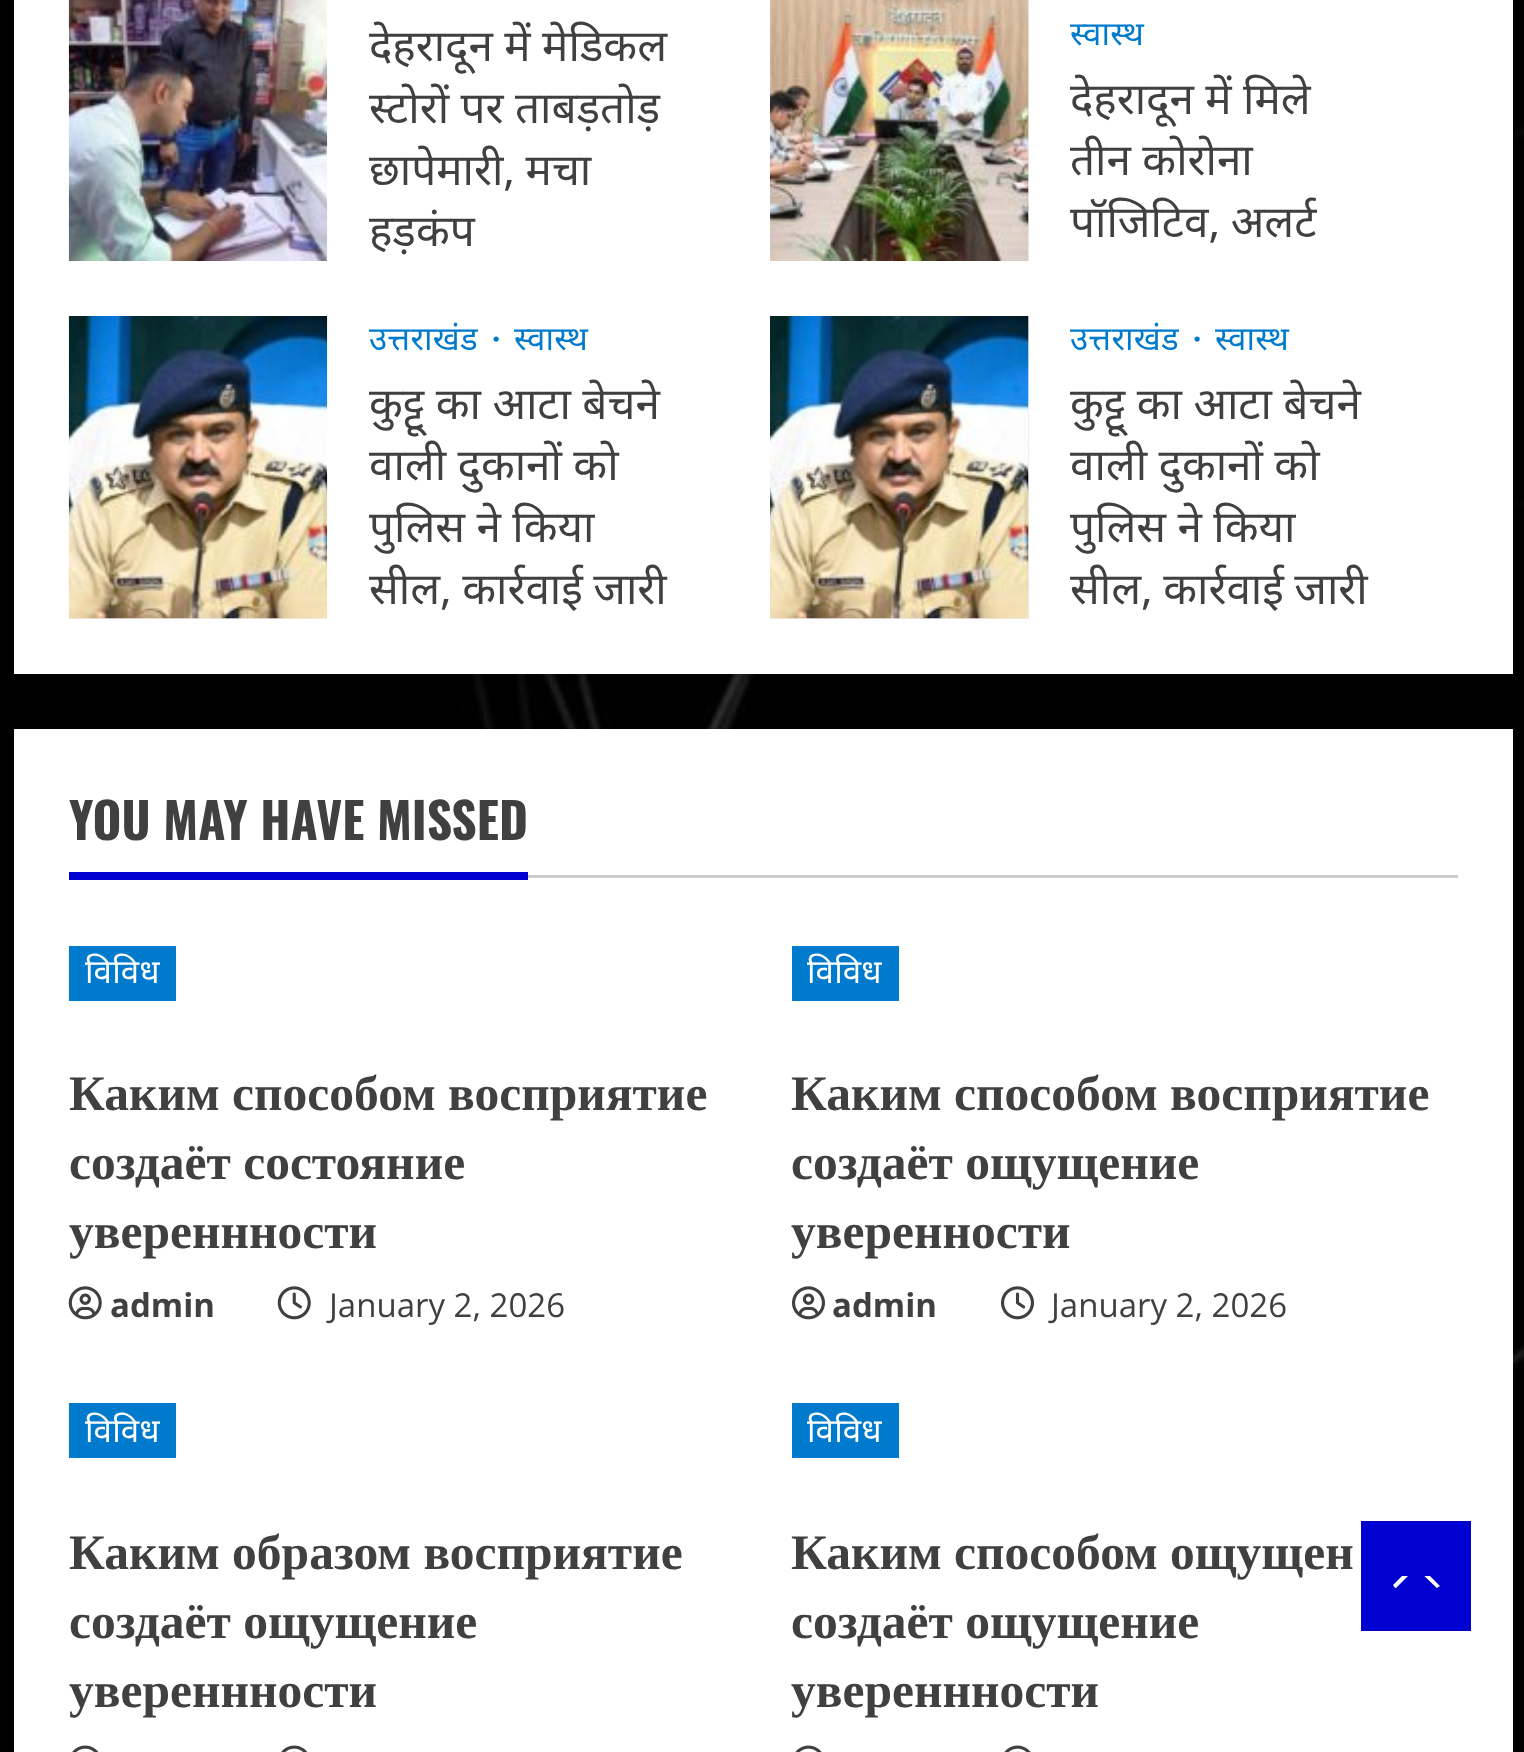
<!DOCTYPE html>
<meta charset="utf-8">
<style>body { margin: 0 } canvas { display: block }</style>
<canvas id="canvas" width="1524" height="1752"></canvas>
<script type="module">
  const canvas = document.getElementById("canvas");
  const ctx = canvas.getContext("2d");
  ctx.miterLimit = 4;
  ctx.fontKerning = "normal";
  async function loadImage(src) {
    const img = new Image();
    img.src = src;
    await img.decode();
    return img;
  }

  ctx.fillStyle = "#ffffff";
  ctx.fillRect(0, 0, 1524, 1752);
  ctx.drawImage(await loadImage("img1.png"), 0, 0, 1524, 1752);
  ctx.fillStyle = "rgba(0, 0, 0, 0.08)";
  ctx.filter = "blur(3px)";
  ctx.beginPath();
  ctx.rect(14, -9, 1499, 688);
  ctx.fill();
  ctx.filter = "none";
  ctx.fillStyle = "#ffffff";
  ctx.fillRect(14, 0, 1499, 674);
  ctx.drawImage(await loadImage("img2.png"), 68, 0, 260, 261);
  ctx.font = "44px Noto Sans";
  ctx.fillStyle = "#404040";
  ctx.fillText("देहरादून में मेडिकल", 369, 61);
  ctx.fillText("स्टोरों पर ताबड़तोड़", 369, 123);
  ctx.wordSpacing = "-1px";
  ctx.fillText("छापेमारी, मचा", 369, 185);
  ctx.wordSpacing = "0px";
  ctx.fillText("हड़कंप", 369, 246);
  ctx.fillStyle = "#ececec";
  ctx.fillRect(1028, 0, 1, 261);
  ctx.drawImage(await loadImage("img3.png"), 770, 0, 259, 261);
  ctx.letterSpacing = "0.25px";
  ctx.font = "33px Noto Sans";
  ctx.fillStyle = "#007acc";
  ctx.fillText("स्वास्थ", 1070, 45);
  ctx.letterSpacing = "0px";
  ctx.font = "44px Noto Sans";
  ctx.fillStyle = "#404040";
  ctx.fillText("देहरादून में मिले", 1070, 114);
  ctx.fillText("तीन कोरोना", 1070, 175);
  ctx.wordSpacing = "-1px";
  ctx.fillText("पॉजिटिव, अलर्ट", 1070, 237);
  ctx.fillStyle = "#ececec";
  ctx.fillRect(69, 618, 258, 1);
  ctx.drawImage(await loadImage("img4.png"), 68, 316, 260, 303);
  ctx.letterSpacing = "0.25px";
  ctx.wordSpacing = "0px";
  ctx.font = "33px Noto Sans";
  ctx.fillStyle = "#007acc";
  ctx.fillText("उत्तराखंड", 369, 350);
  ctx.font = "bold 33px Liberation Serif";
  ctx.fillText("∙", 492, 350);
  ctx.font = "33px Noto Sans";
  ctx.fillText("स्वास्थ", 514, 350);
  ctx.letterSpacing = "0px";
  ctx.font = "44px Noto Sans";
  ctx.fillStyle = "#404040";
  ctx.fillText("कुट्टू का आटा बेचने", 369, 419);
  ctx.fillText("वाली दुकानों को", 369, 480);
  ctx.fillText("पुलिस ने किया", 369, 542);
  ctx.wordSpacing = "-1px";
  ctx.fillText("सील, कार्रवाई जारी", 369, 604);
  ctx.fillStyle = "#ececec";
  ctx.fillRect(770, 316, 259, 303);
  ctx.drawImage(await loadImage("img5.png"), 770, 316, 259, 303);
  ctx.letterSpacing = "0.25px";
  ctx.wordSpacing = "0px";
  ctx.font = "33px Noto Sans";
  ctx.fillStyle = "#007acc";
  ctx.fillText("उत्तराखंड", 1070, 350);
  ctx.font = "bold 33px Liberation Serif";
  ctx.fillText("∙", 1193, 350);
  ctx.font = "33px Noto Sans";
  ctx.fillText("स्वास्थ", 1215, 350);
  ctx.letterSpacing = "0px";
  ctx.font = "44px Noto Sans";
  ctx.fillStyle = "#404040";
  ctx.fillText("कुट्टू का आटा बेचने", 1070, 419);
  ctx.fillText("वाली दुकानों को", 1070, 480);
  ctx.fillText("पुलिस ने किया", 1070, 542);
  ctx.wordSpacing = "-1px";
  ctx.fillText("सील, कार्रवाई जारी", 1070, 604);
  ctx.fillStyle = "#ffffff";
  ctx.fillRect(14, 729, 1499, 1023);
  ctx.fillStyle = "#cccccc";
  ctx.fillRect(528, 875, 930, 3);
  ctx.wordSpacing = "0px";
  ctx.font = "bold 49.5px Oswald";
  ctx.fillStyle = "#404040";
  ctx.fillText("YOU MAY HAVE MISSED", 69, 840);
  ctx.fillStyle = "#0000d1";
  ctx.fillRect(69, 872, 459, 8);
  ctx.fillStyle = "#007acc";
  ctx.fillRect(69, 946, 107, 55);
  ctx.letterSpacing = "0.25px";
  ctx.font = "33px Noto Sans";
  ctx.fillStyle = "#ffffff";
  ctx.fillText("विविध", 85, 983);
  ctx.letterSpacing = "0px";
  ctx.font = "bold 49.5px Liberation Serif";
  ctx.fillStyle = "#404040";
  ctx.fillText("Каким способом восприятие", 69, 1110);
  ctx.fillText("создаёт состояние", 69, 1179);
  ctx.fillText("увереннности", 69, 1248);
  ctx.drawImage(await loadImage("img6.png"), 68, 1286, 34, 34);
  ctx.font = "bold 33px Open Sans";
  ctx.fillText("admin", 110, 1317);
  ctx.drawImage(await loadImage("img7.png"), 277, 1286, 34, 34);
  ctx.font = "33px Open Sans";
  ctx.fillText("January 2, 2026", 329, 1317);
  ctx.fillStyle = "#007acc";
  ctx.fillRect(792, 946, 107, 55);
  ctx.letterSpacing = "0.25px";
  ctx.font = "33px Noto Sans";
  ctx.fillStyle = "#ffffff";
  ctx.fillText("विविध", 807, 983);
  ctx.letterSpacing = "0px";
  ctx.font = "bold 49.5px Liberation Serif";
  ctx.fillStyle = "#404040";
  ctx.fillText("Каким способом восприятие", 791, 1110);
  ctx.fillText("создаёт ощущение", 791, 1179);
  ctx.fillText("уверенности", 791, 1248);
  ctx.drawImage(await loadImage("img8.png"), 792, 1286, 33, 34);
  ctx.font = "bold 33px Open Sans";
  ctx.fillText("admin", 832, 1317);
  ctx.drawImage(await loadImage("img9.png"), 1001, 1286, 33, 34);
  ctx.font = "33px Open Sans";
  ctx.fillText("January 2, 2026", 1051, 1317);
  ctx.fillStyle = "#007acc";
  ctx.fillRect(69, 1403, 107, 55);
  ctx.letterSpacing = "0.25px";
  ctx.font = "33px Noto Sans";
  ctx.fillStyle = "#ffffff";
  ctx.fillText("विविध", 85, 1442);
  ctx.letterSpacing = "0px";
  ctx.font = "bold 49.5px Liberation Serif";
  ctx.fillStyle = "#404040";
  ctx.fillText("Каким образом восприятие", 69, 1569);
  ctx.fillText("создаёт ощущение", 69, 1638);
  ctx.fillText("увереннности", 69, 1707);
  ctx.drawImage(await loadImage("img10.png"), 72, 1745, 27, 7);
  ctx.drawImage(await loadImage("img11.png"), 281, 1745, 27, 7);
  ctx.fillStyle = "#007acc";
  ctx.fillRect(792, 1403, 107, 55);
  ctx.letterSpacing = "0.25px";
  ctx.font = "33px Noto Sans";
  ctx.fillStyle = "#ffffff";
  ctx.fillText("विविध", 807, 1442);
  ctx.letterSpacing = "0px";
  ctx.font = "bold 49.5px Liberation Serif";
  ctx.fillStyle = "#404040";
  ctx.fillText("Каким способом ощущен", 791, 1569);
  ctx.fillText("создаёт ощущение", 791, 1638);
  ctx.fillText("увереннности", 791, 1707);
  ctx.drawImage(await loadImage("img12.png"), 795, 1745, 27, 7);
  ctx.drawImage(await loadImage("img13.png"), 1004, 1745, 27, 7);
  ctx.fillStyle = "#0000d1";
  ctx.fillRect(1361, 1521, 110, 110);
  ctx.fillStyle = "#ffffff";
  ctx.beginPath();
  ctx.moveTo(1399, 1590);
  ctx.bezierCurveTo(1396, 1589, 1394, 1587, 1393, 1585);
  ctx.lineTo(1402, 1576);
  ctx.lineTo(1430, 1576);
  ctx.lineTo(1440, 1586);
  ctx.bezierCurveTo(1438, 1587, 1436, 1589, 1434, 1590);
  ctx.closePath();
  ctx.fill();
  ctx.fillStyle = "#0000d1";
  ctx.beginPath();
  ctx.moveTo(1444, 1595);
  ctx.lineTo(1389, 1595);
  ctx.lineTo(1416, 1568);
  ctx.closePath();
  ctx.fill();
</script>
